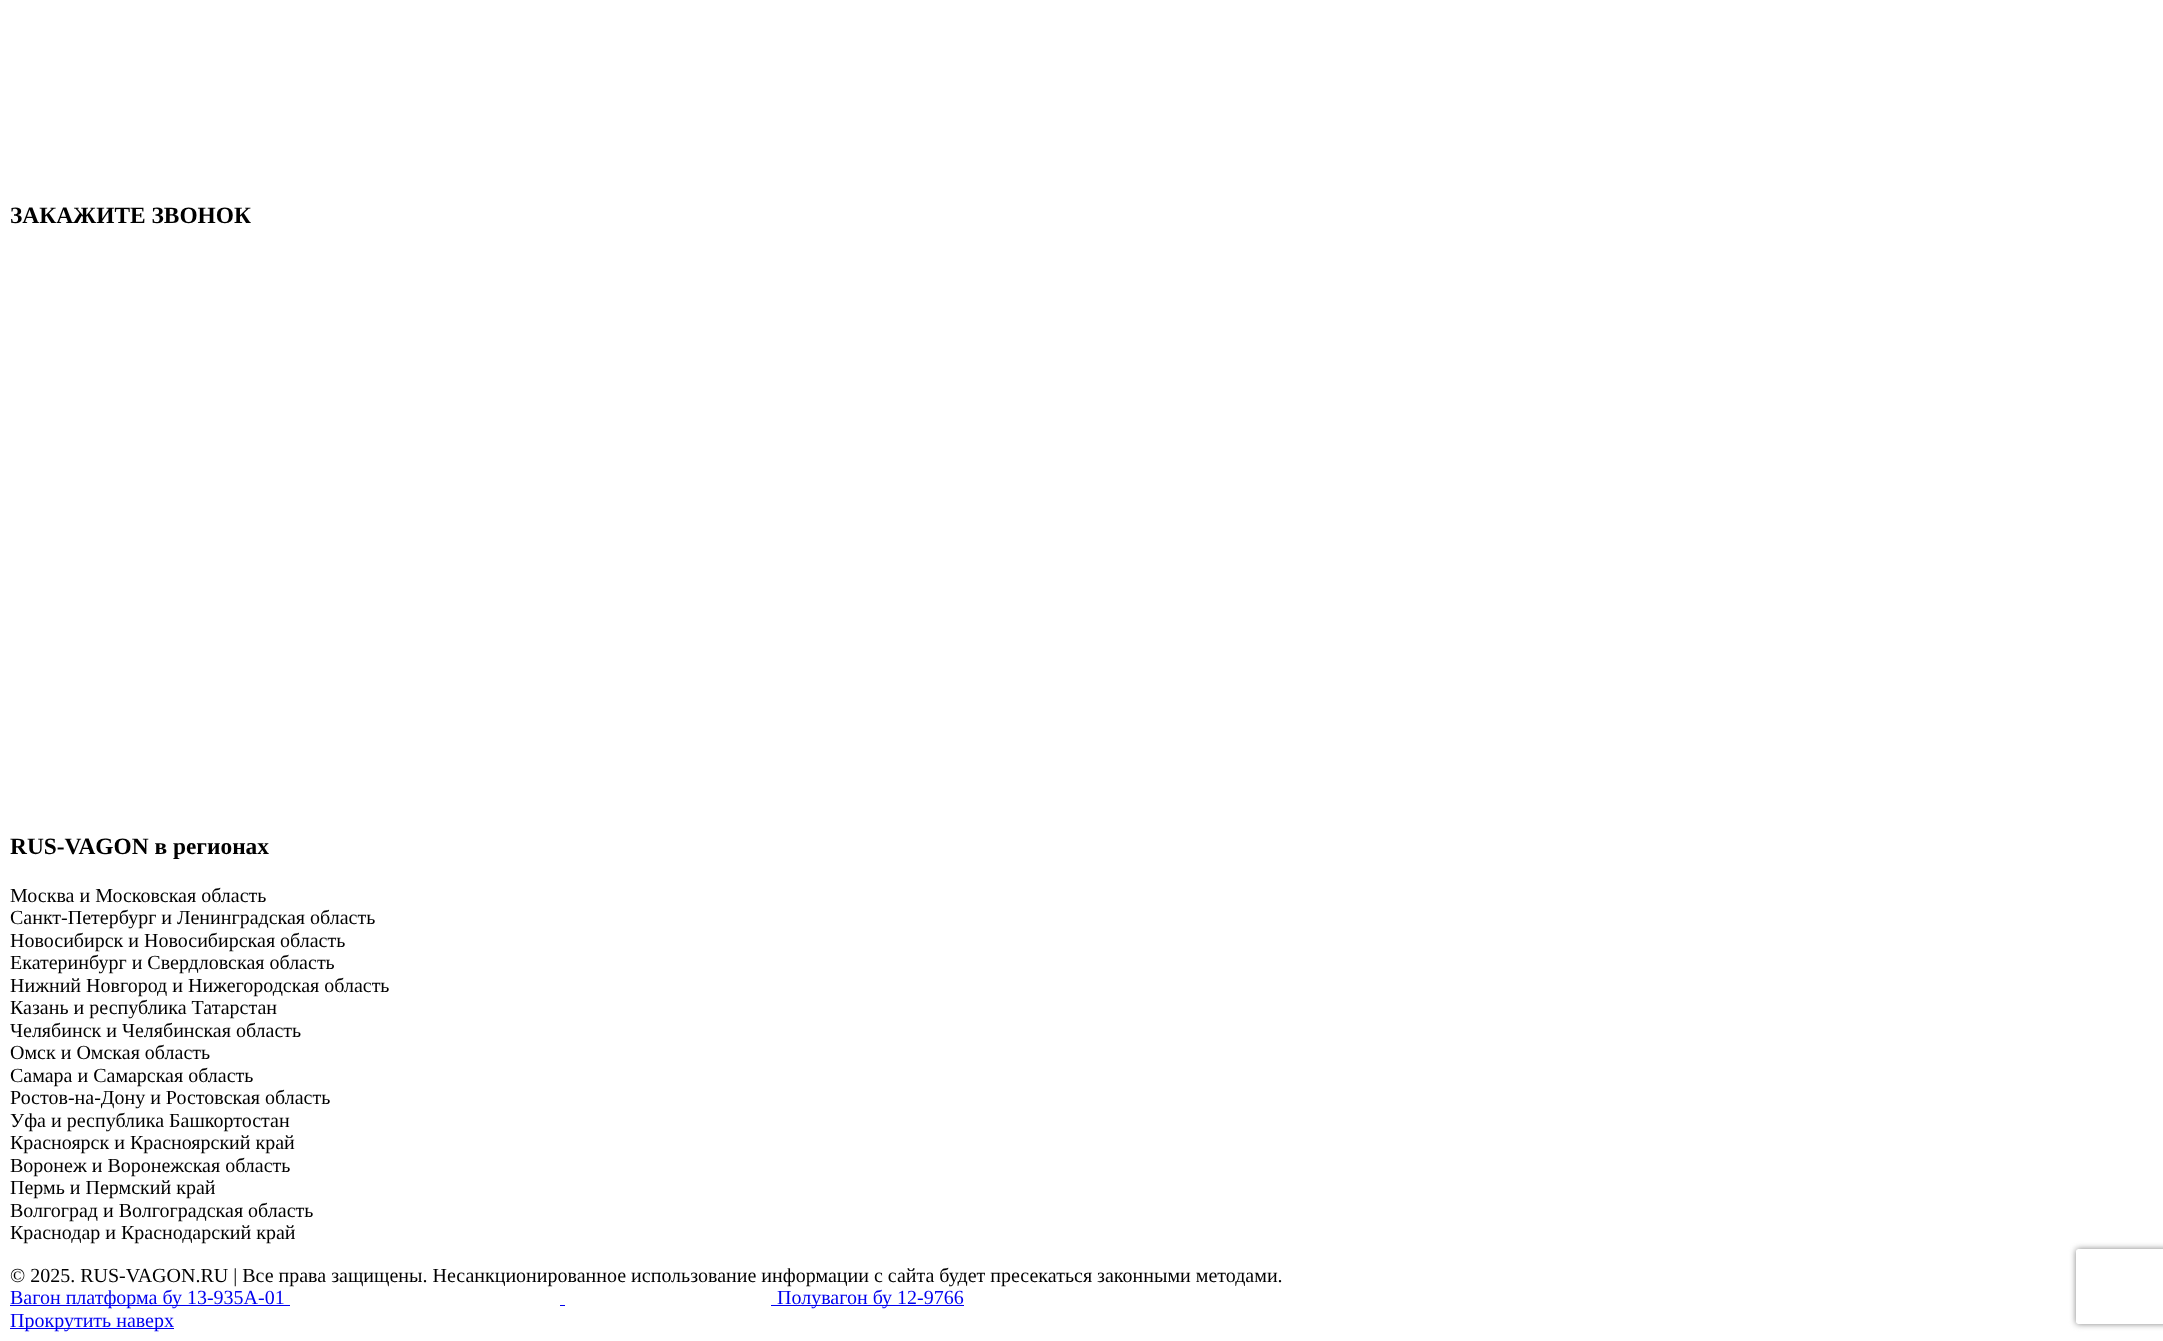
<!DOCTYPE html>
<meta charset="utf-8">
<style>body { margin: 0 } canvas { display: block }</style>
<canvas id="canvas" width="2163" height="1341"></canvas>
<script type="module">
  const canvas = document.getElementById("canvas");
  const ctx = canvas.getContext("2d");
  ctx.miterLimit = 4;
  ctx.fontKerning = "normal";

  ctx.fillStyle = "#ffffff";
  ctx.fillRect(0, 0, 2163, 1341);
  ctx.font = "bold 23.4px Liberation Serif";
  ctx.fillStyle = "#000000";
  ctx.fillText("ЗАКАЖИТЕ ЗВОНОК", 10, 223);
  ctx.fillText("RUS-VAGON в регионах", 10, 854);
  ctx.font = "20px Liberation Serif";
  ctx.fillText("Москва и Московская область", 10, 902);
  ctx.fillText("Санкт-Петербург и Ленинградская область", 10, 924);
  ctx.fillText("Новосибирск и Новосибирская область", 10, 947);
  ctx.fillText("Екатеринбург и Свердловская область", 10, 969);
  ctx.fillText("Нижний Новгород и Нижегородская область", 10, 992);
  ctx.fillText("Казань и республика Татарстан", 10, 1014);
  ctx.fillText("Челябинск и Челябинская область", 10, 1037);
  ctx.fillText("Омск и Омская область", 10, 1059);
  ctx.fillText("Самара и Самарская область", 10, 1082);
  ctx.fillText("Ростов-на-Дону и Ростовская область", 10, 1104);
  ctx.fillText("Уфа и республика Башкортостан", 10, 1127);
  ctx.fillText("Красноярск и Красноярский край", 10, 1149);
  ctx.fillText("Воронеж и Воронежская область", 10, 1172);
  ctx.fillText("Пермь и Пермский край", 10, 1194);
  ctx.fillText("Волгоград и Волгоградская область", 10, 1217);
  ctx.fillText("Краснодар и Краснодарский край", 10, 1239);
  ctx.fillText("© 2025. RUS-VAGON.RU | Все права защищены. Несанкционированное использование информации с сайта будет пресекаться законными методами.", 10, 1282);
  ctx.fillStyle = "#0000ee";
  ctx.fillRect(10, 1305, 280, 1);
  ctx.fillText("Вагон платформа бу 13-935А-01", 10, 1304);
  ctx.fillRect(560, 1305, 5, 1);
  ctx.fillRect(771, 1305, 193, 1);
  ctx.fillText("Полувагон бу 12-9766", 777, 1304);
  ctx.save();
  ctx.beginPath();
  ctx.moveTo(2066, 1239);
  ctx.lineTo(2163, 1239);
  ctx.lineTo(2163, 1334);
  ctx.lineTo(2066, 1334);
  ctx.closePath();
  ctx.moveTo(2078.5, 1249);
  ctx.lineTo(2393.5, 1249);
  ctx.bezierCurveTo(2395, 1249, 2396, 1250, 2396, 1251.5);
  ctx.lineTo(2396, 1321.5);
  ctx.bezierCurveTo(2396, 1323, 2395, 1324, 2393.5, 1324);
  ctx.lineTo(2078.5, 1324);
  ctx.bezierCurveTo(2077, 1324, 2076, 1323, 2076, 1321.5);
  ctx.lineTo(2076, 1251.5);
  ctx.bezierCurveTo(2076, 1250, 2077, 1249, 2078.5, 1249);
  ctx.closePath();
  ctx.clip("evenodd");
  ctx.fillStyle = "#808080";
  ctx.filter = "blur(3px)";
  ctx.beginPath();
  ctx.roundRect(2076, 1249, 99, 75, 2.5);
  ctx.fill();
  ctx.filter = "none";
  ctx.restore();
  ctx.fillRect(10, 1328, 164, 1);
  ctx.fillText("Прокрутить наверх", 10, 1327);
</script>
